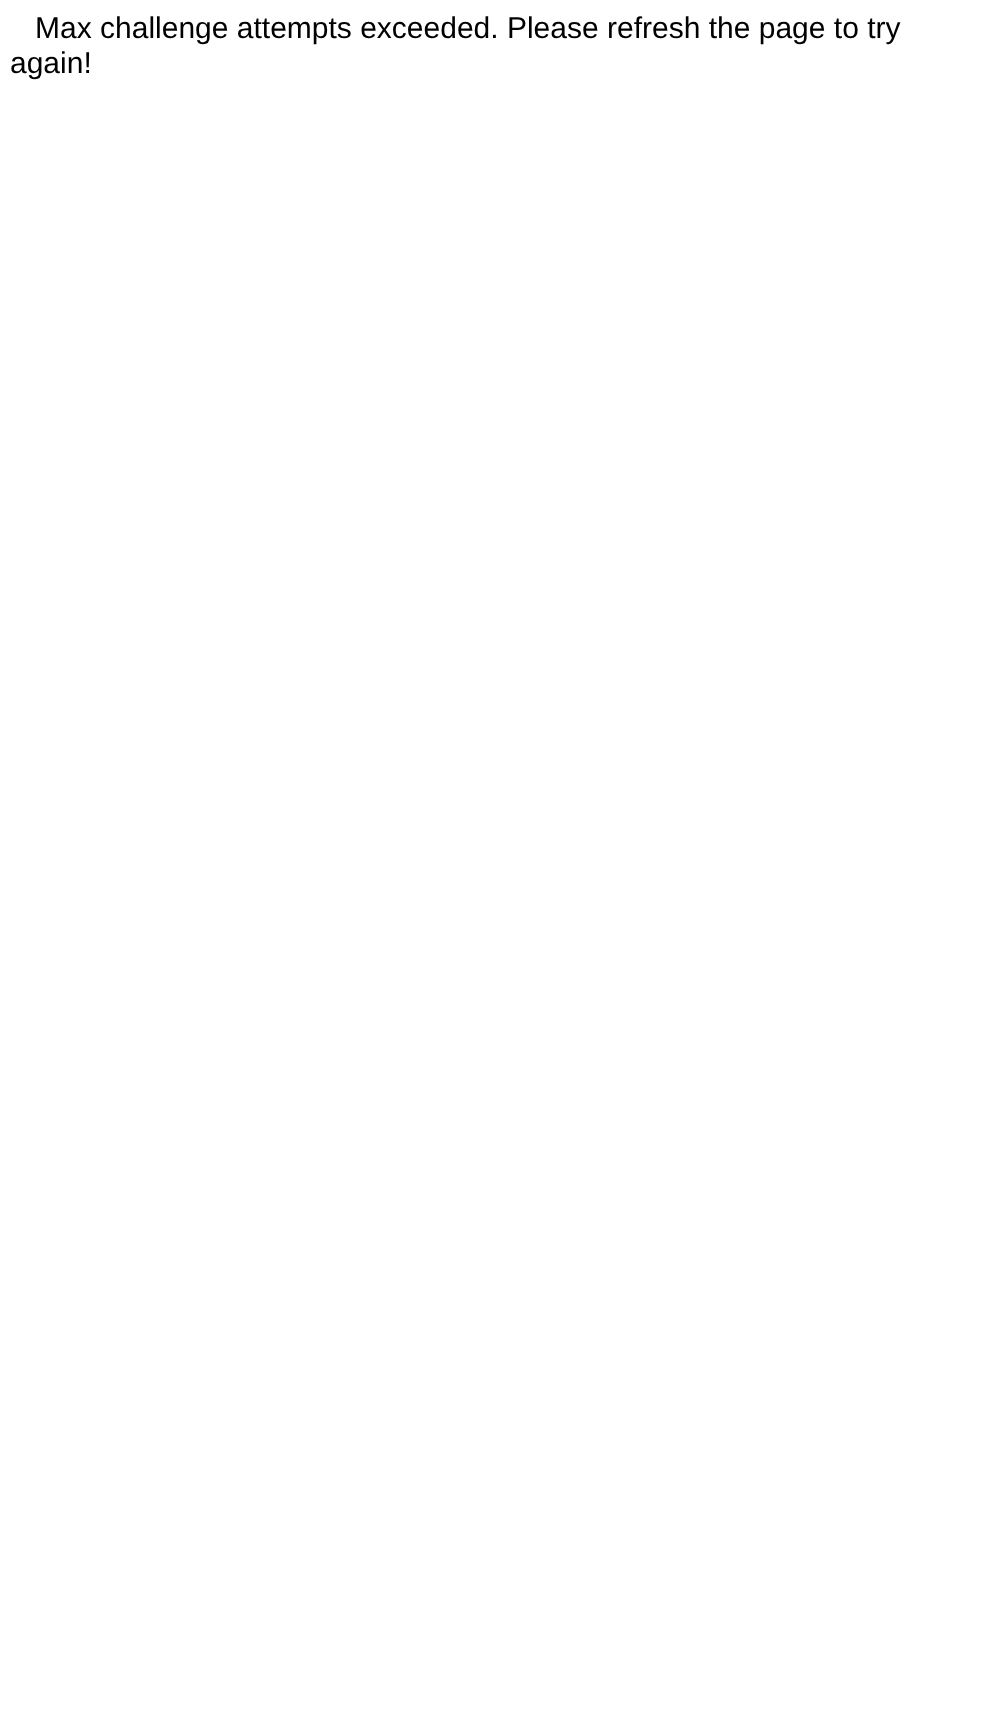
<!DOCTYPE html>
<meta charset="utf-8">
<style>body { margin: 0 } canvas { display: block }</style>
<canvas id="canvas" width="984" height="1713"></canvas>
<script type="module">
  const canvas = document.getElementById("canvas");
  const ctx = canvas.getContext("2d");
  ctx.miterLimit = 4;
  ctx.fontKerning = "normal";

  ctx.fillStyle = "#ffffff";
  ctx.fillRect(0, 0, 984, 1713);
  ctx.font = "30px Liberation Sans";
  ctx.fillStyle = "#000000";
  ctx.fillText("Max challenge attempts exceeded. Please refresh the page to try", 35, 38);
  ctx.fillText("again!", 10, 73);
</script>
